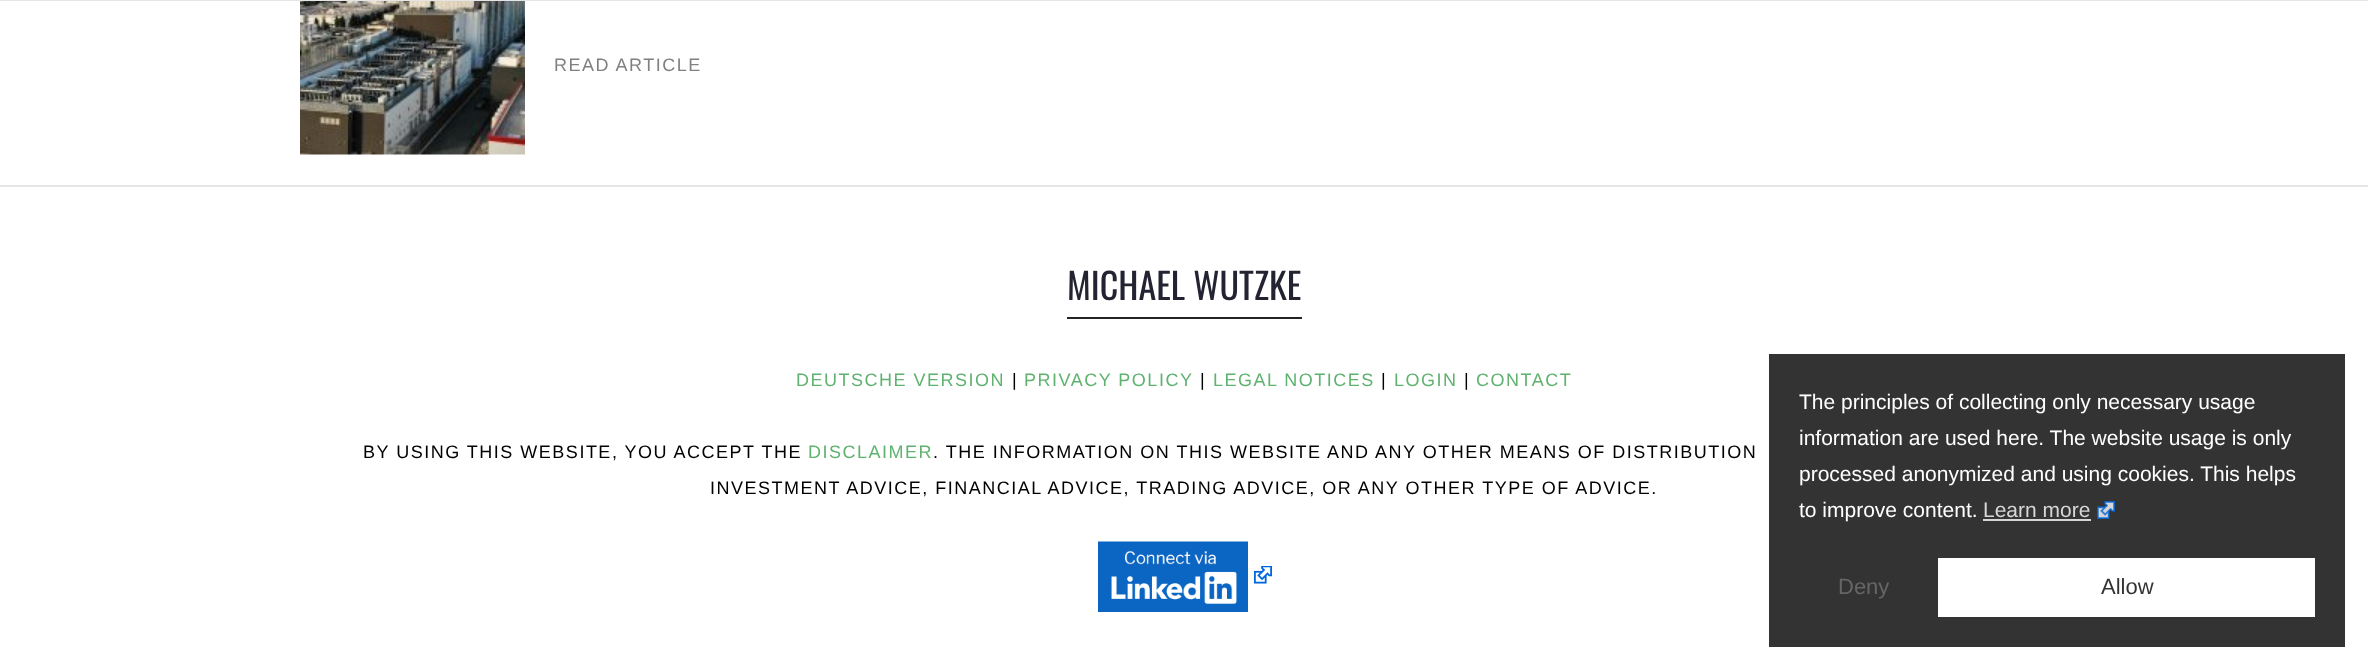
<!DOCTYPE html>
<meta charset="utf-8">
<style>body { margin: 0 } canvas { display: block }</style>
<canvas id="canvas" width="2368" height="670"></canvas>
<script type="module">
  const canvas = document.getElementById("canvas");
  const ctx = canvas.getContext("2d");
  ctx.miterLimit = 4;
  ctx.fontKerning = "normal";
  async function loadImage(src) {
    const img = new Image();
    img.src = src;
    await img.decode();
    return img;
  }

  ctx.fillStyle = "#ffffff";
  ctx.fillRect(0, 0, 2368, 670);
  ctx.fillStyle = "#e5e5e5";
  ctx.fillRect(0, 0, 2368, 1);
  ctx.drawImage(await loadImage("img1.png"), 300, 1, 225, 154);
  ctx.letterSpacing = "1.5px";
  ctx.font = "18px Liberation Sans";
  ctx.fillStyle = "#808080";
  ctx.fillText("READ ARTICLE", 554, 71);
  ctx.fillStyle = "#e5e5e5";
  ctx.fillRect(0, 185, 2368, 2);
  ctx.fillStyle = "#232323";
  ctx.fillRect(1067, 317, 235, 2);
  ctx.letterSpacing = "0px";
  ctx.font = "36px Oswald";
  ctx.fillStyle = "#232332";
  ctx.fillText("MICHAEL WUTZKE", 1067, 300);
  ctx.letterSpacing = "1.5px";
  ctx.font = "18px Liberation Sans";
  ctx.fillStyle = "#60b270";
  ctx.fillText("DEUTSCHE VERSION", 796, 386);
  ctx.fillStyle = "#000000";
  ctx.fillText("|", 1012, 386);
  ctx.fillStyle = "#60b270";
  ctx.fillText("PRIVACY POLICY", 1024, 386);
  ctx.fillStyle = "#000000";
  ctx.fillText("|", 1200, 386);
  ctx.fillStyle = "#60b270";
  ctx.fillText("LEGAL NOTICES", 1213, 386);
  ctx.fillStyle = "#000000";
  ctx.fillText("|", 1381, 386);
  ctx.fillStyle = "#60b270";
  ctx.fillText("LOGIN", 1394, 386);
  ctx.fillStyle = "#000000";
  ctx.fillText("|", 1464, 386);
  ctx.fillStyle = "#60b270";
  ctx.fillText("CONTACT", 1476, 386);
  ctx.fillStyle = "#000000";
  ctx.fillText("BY USING THIS WEBSITE, YOU ACCEPT THE", 363, 458);
  ctx.fillStyle = "#60b270";
  ctx.fillText("DISCLAIMER", 808, 458);
  ctx.fillStyle = "#000000";
  ctx.fillText(". THE INFORMATION ON THIS WEBSITE AND ANY OTHER MEANS OF DISTRIBUTION", 933, 458);
  ctx.fillText("INVESTMENT ADVICE, FINANCIAL ADVICE, TRADING ADVICE, OR ANY OTHER TYPE OF ADVICE.", 710, 494);
  ctx.drawImage(await loadImage("img2.png"), 1098, 541, 150, 71);
  ctx.drawImage(await loadImage("img3.png"), 1254, 566, 18, 18);
  ctx.fillStyle = "#333333";
  ctx.fillRect(1769, 354, 576, 293);
  ctx.letterSpacing = "0px";
  ctx.font = "21px Liberation Sans";
  ctx.fillStyle = "#ffffff";
  ctx.fillText("The principles of collecting only necessary usage", 1799, 409);
  ctx.fillText("information are used here. The website usage is only", 1799, 445);
  ctx.fillText("processed anonymized and using cookies. This helps", 1799, 481);
  ctx.fillText("to improve content.", 1799, 517);
  ctx.drawImage(await loadImage("img4.png"), 2097, 501, 18, 18);
  ctx.fillStyle = "#d6d6d6";
  ctx.fillText("Learn more", 1983, 517);
  ctx.fillRect(1983, 519, 108, 2);
  ctx.font = "22px Liberation Sans";
  ctx.fillStyle = "#666666";
  ctx.fillText("Deny", 1838, 594);
  ctx.fillStyle = "#ffffff";
  ctx.fillRect(1938, 558, 377, 59);
  ctx.fillStyle = "#333333";
  ctx.fillText("Allow", 2101, 594);
</script>
